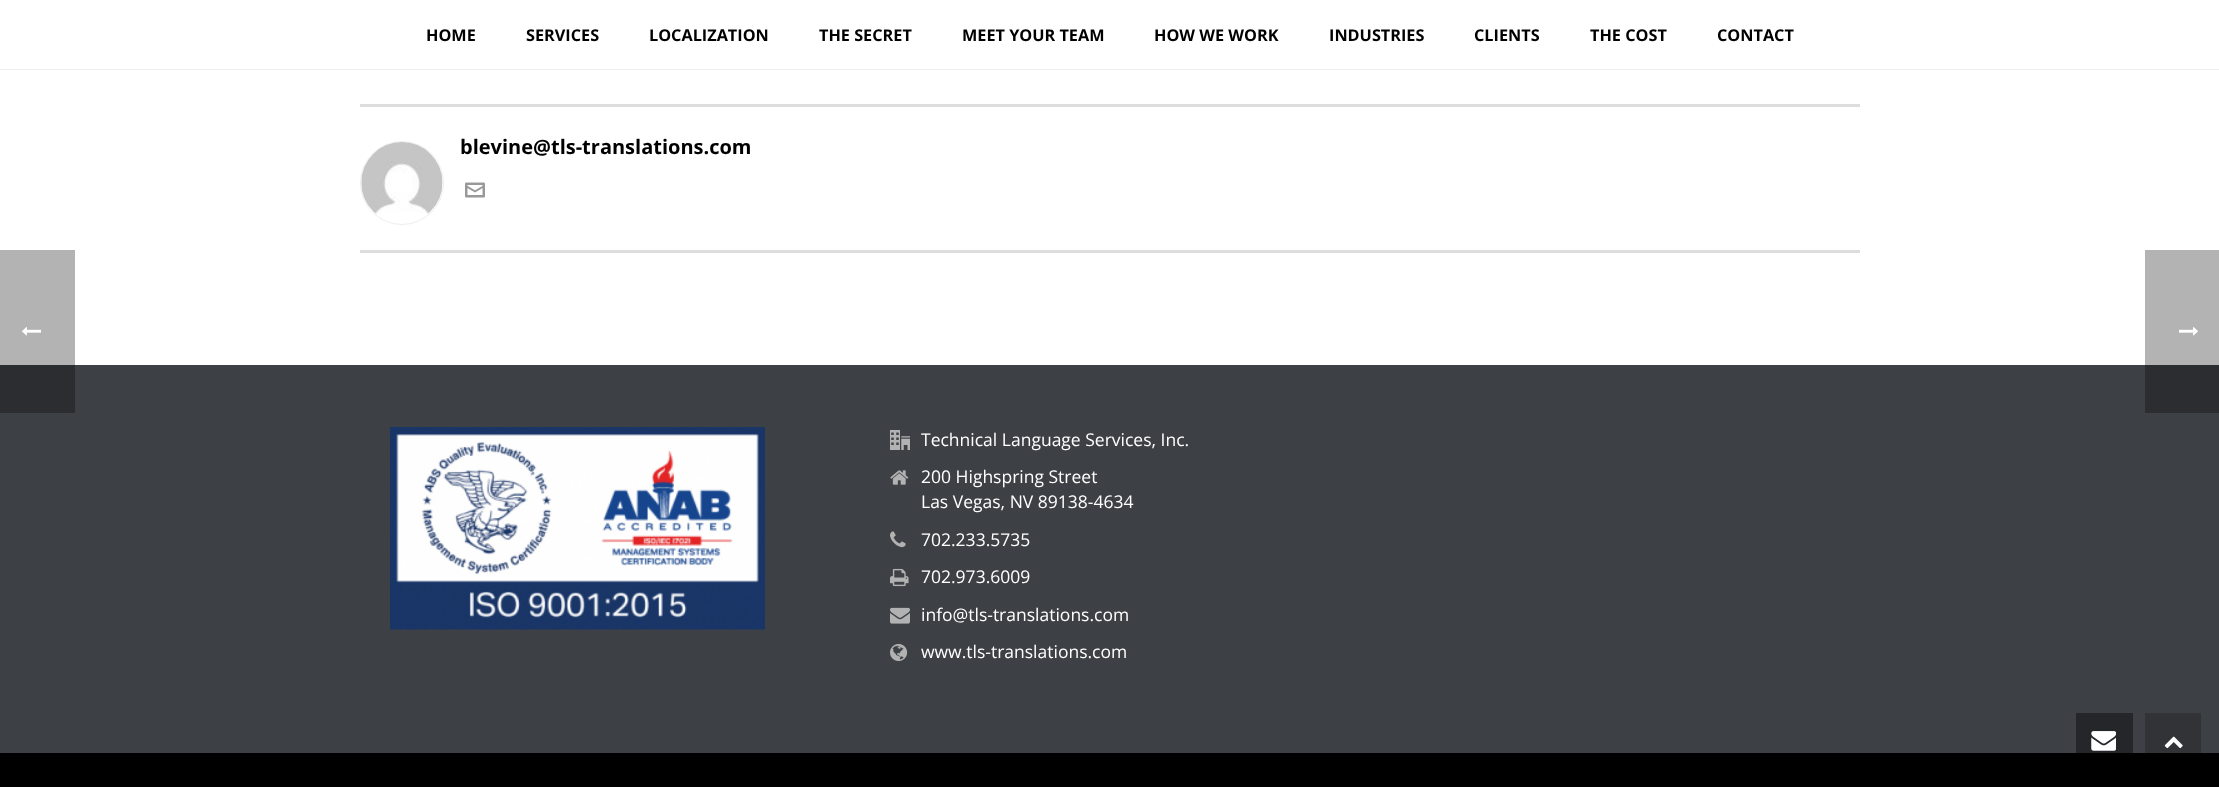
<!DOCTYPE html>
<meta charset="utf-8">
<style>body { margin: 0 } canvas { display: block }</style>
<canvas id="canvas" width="2219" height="787"></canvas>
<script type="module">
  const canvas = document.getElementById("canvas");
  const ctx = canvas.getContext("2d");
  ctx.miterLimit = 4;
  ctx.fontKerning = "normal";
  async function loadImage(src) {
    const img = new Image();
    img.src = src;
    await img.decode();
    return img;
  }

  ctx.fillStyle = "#ffffff";
  ctx.fillRect(0, 0, 2219, 787);
  ctx.fillStyle = "#b3b3b3";
  ctx.fillRect(2145, 250, 74, 115);
  ctx.fillRect(0, 250, 75, 115);
  ctx.drawImage(await loadImage("img1.png"), 22, 327, 19, 9);
  ctx.font = "bold 16.25px Open Sans";
  ctx.fillStyle = "#000000";
  ctx.fillText("HOME", 426, 41);
  ctx.fillText("SERVICES", 526, 41);
  ctx.fillText("LOCALIZATION", 649, 41);
  ctx.fillText("THE SECRET", 819, 41);
  ctx.fillText("MEET YOUR TEAM", 962, 41);
  ctx.fillText("HOW WE WORK", 1154, 41);
  ctx.fillText("INDUSTRIES", 1329, 41);
  ctx.fillText("CLIENTS", 1474, 41);
  ctx.fillText("THE COST", 1590, 41);
  ctx.fillText("CONTACT", 1717, 41);
  ctx.fillStyle = "#ededed";
  ctx.fillRect(0, 69, 2219, 1);
  ctx.fillStyle = "#dddddd";
  ctx.fillRect(360, 104, 1500, 3);
  ctx.fillRect(360, 250, 1500, 3);
  ctx.beginPath();
  ctx.arc(402, 183, 41.5, 0, Math.PI * 2);
  ctx.strokeStyle = "#eeeeee";
  ctx.stroke();
  ctx.drawImage(await loadImage("img2.png"), 361, 142, 82, 72);
  ctx.font = "bold 20px Open Sans";
  ctx.fillStyle = "#000000";
  ctx.fillText("blevine@tls-translations.com", 460, 154);
  ctx.drawImage(await loadImage("img3.png"), 465, 182, 20, 16);
  ctx.fillStyle = "#3d4045";
  ctx.fillRect(0, 365, 2219, 388);
  ctx.fillStyle = "#252629";
  ctx.fillRect(2076, 713, 57, 40);
  ctx.fillStyle = "#313337";
  ctx.fillRect(2145, 713, 56, 40);
  ctx.fillStyle = "#2b2d30";
  ctx.fillRect(2145, 365, 74, 48);
  ctx.fillRect(0, 365, 75, 48);
  ctx.drawImage(await loadImage("img4.png"), 390, 427, 375, 203);
  ctx.drawImage(await loadImage("img5.png"), 890, 430, 20, 20);
  ctx.font = "17.5px Open Sans";
  ctx.fillStyle = "#ffffff";
  ctx.fillText("Technical Language Services, Inc.", 921, 446);
  ctx.drawImage(await loadImage("img6.png"), 890, 470, 19, 15);
  ctx.fillText("200 Highspring Street", 921, 483);
  ctx.fillText("Las Vegas, NV 89138-4634", 921, 508);
  ctx.drawImage(await loadImage("img7.png"), 890, 531, 16, 17);
  ctx.fillText("702.233.5735", 921, 546);
  ctx.drawImage(await loadImage("img8.png"), 890, 568, 19, 19);
  ctx.fillText("702.973.6009", 921, 583);
  ctx.drawImage(await loadImage("img9.png"), 890, 607, 20, 17);
  ctx.fillText("info@tls-translations.com", 921, 621);
  ctx.drawImage(await loadImage("img10.png"), 890, 643, 18, 18);
  ctx.fillText("www.tls-translations.com", 921, 658);
  ctx.fillStyle = "#000000";
  ctx.fillRect(0, 753, 2219, 34);
  ctx.drawImage(await loadImage("img11.png"), 2179, 327, 19, 9);
  ctx.drawImage(await loadImage("img12.png"), 2091, 731, 25, 20);
  ctx.drawImage(await loadImage("img13.png"), 2164, 736, 19, 13);
</script>
